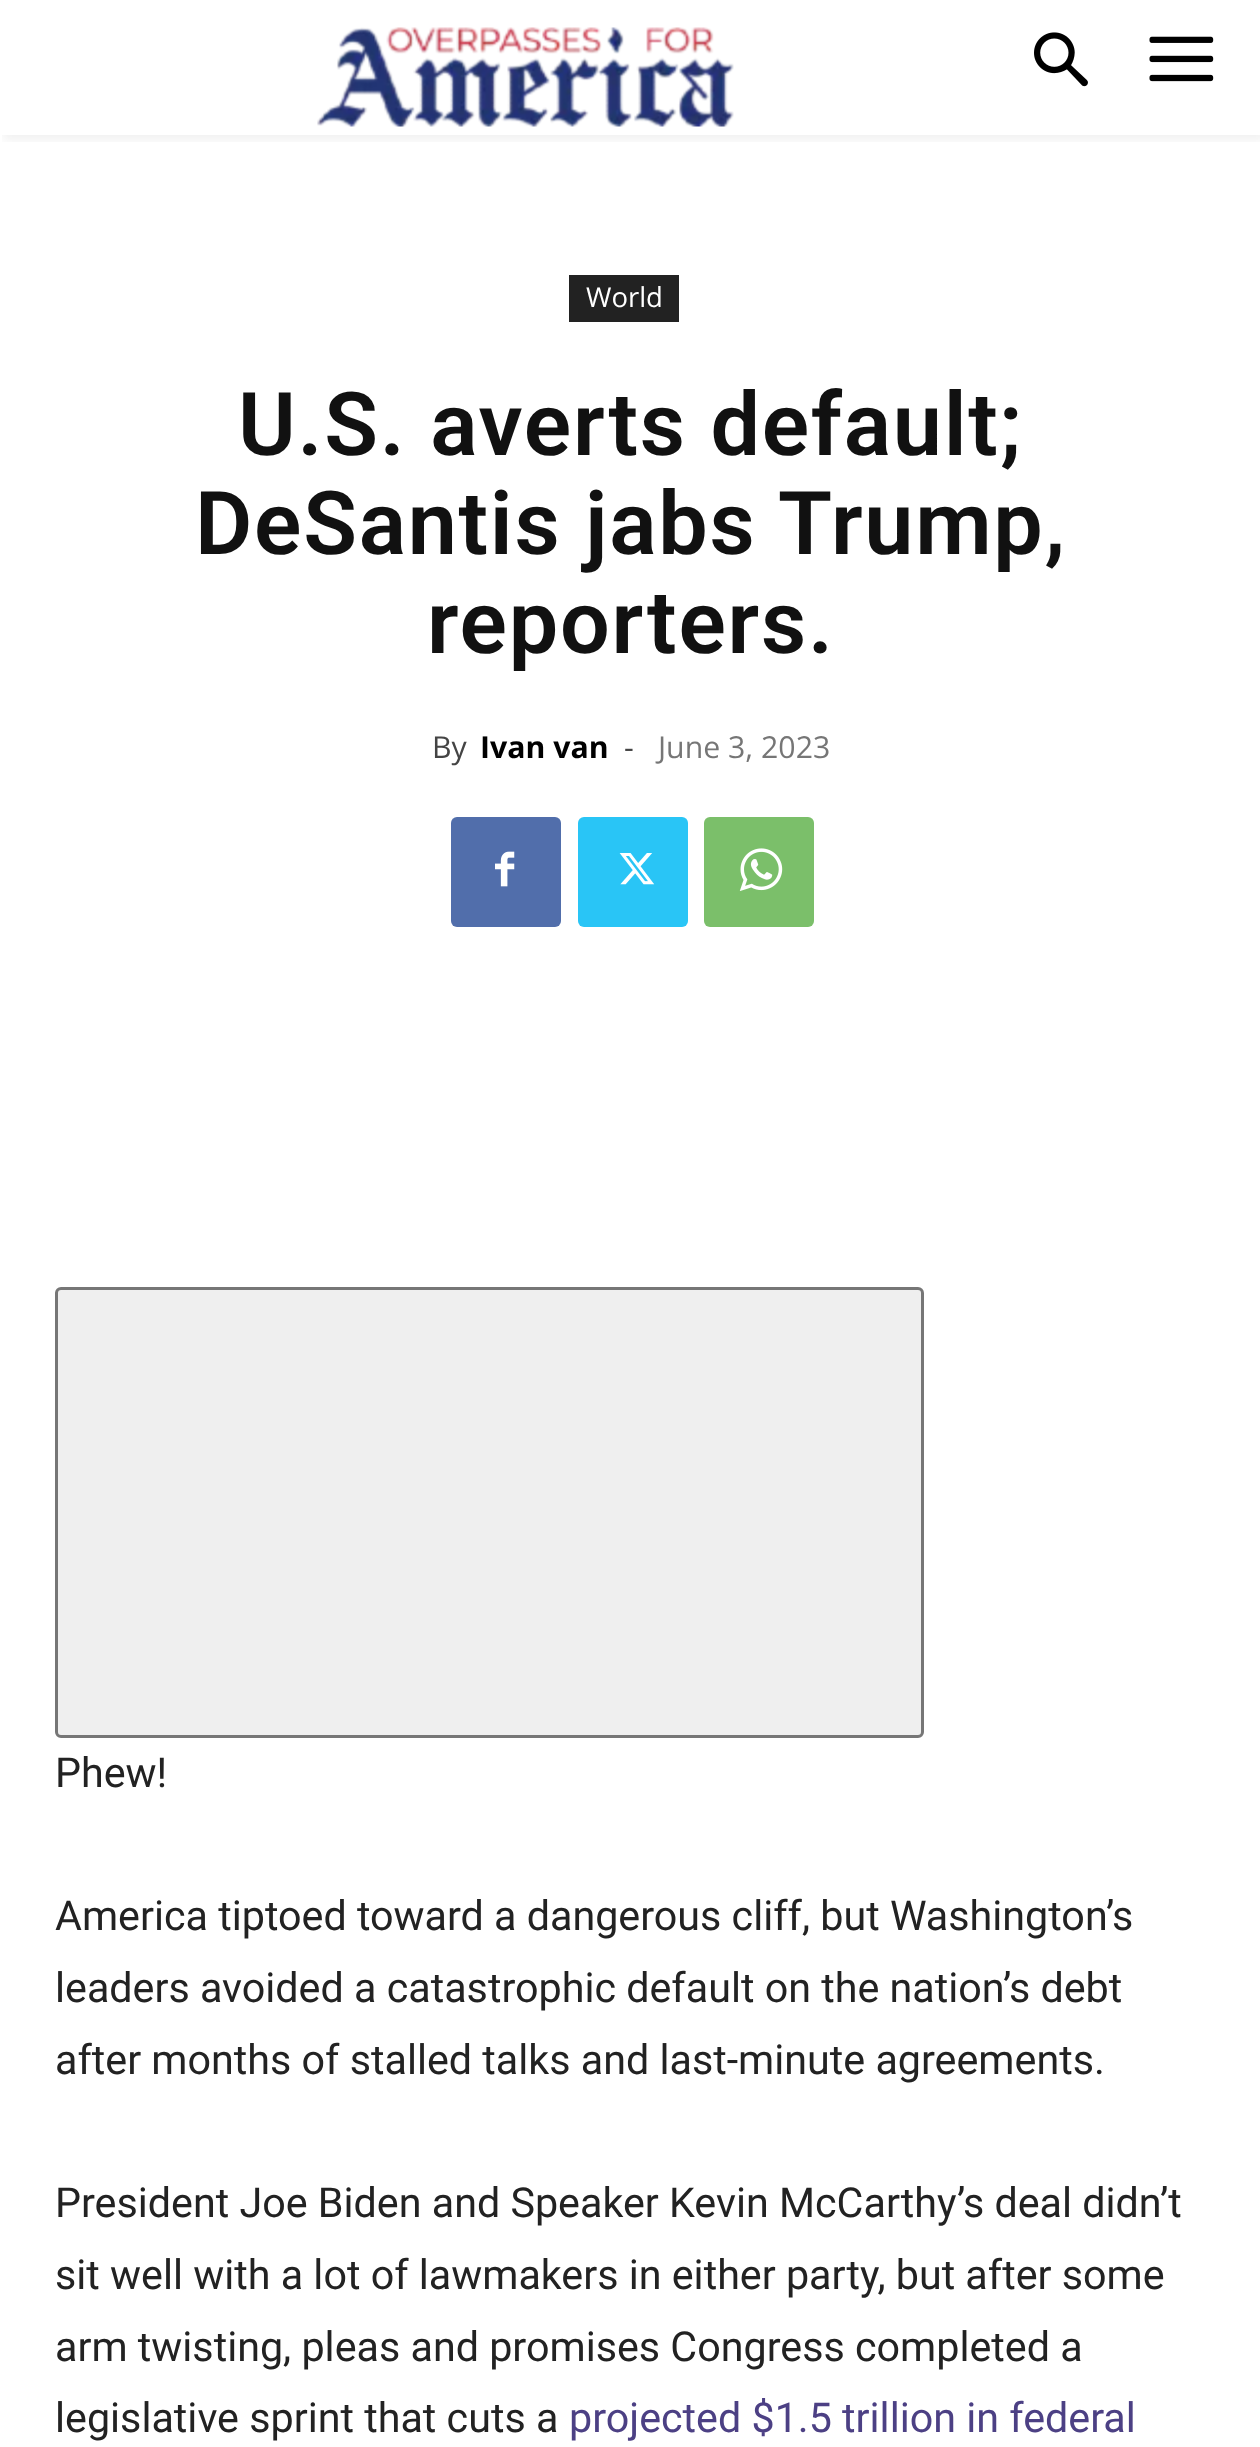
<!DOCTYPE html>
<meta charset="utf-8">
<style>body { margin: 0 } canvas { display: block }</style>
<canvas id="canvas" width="1260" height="2447"></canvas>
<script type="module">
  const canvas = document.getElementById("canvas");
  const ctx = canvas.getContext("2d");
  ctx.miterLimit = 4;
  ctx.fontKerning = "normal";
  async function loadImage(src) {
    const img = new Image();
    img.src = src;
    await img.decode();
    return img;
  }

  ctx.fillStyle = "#ffffff";
  ctx.fillRect(0, 0, 1260, 2447);
  ctx.drawImage(await loadImage("img1.png"), 317, 27, 417, 100);
  ctx.drawImage(await loadImage("img2.png"), 1034, 32, 54, 55);
  ctx.drawImage(await loadImage("img3.png"), 1149, 36, 65, 46);
  ctx.save();
  ctx.beginPath();
  ctx.rect(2, 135, 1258, 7);
  ctx.clip();
  ctx.fillStyle = "rgba(0, 0, 0, 0.06)";
  ctx.filter = "blur(5.5px)";
  ctx.beginPath();
  ctx.rect(3, 6, 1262, 134);
  ctx.fill();
  ctx.filter = "none";
  ctx.restore();
  ctx.fillStyle = "#222222";
  ctx.fillRect(569, 275, 110, 47);
  ctx.font = "27.5px Open Sans";
  ctx.fillStyle = "#ffffff";
  ctx.fillText("World", 586, 307);
  ctx.letterSpacing = "1.75px";
  ctx.font = "600 88px Roboto";
  ctx.fillStyle = "#111111";
  ctx.fillText("U.S. averts default;", 238, 455);
  ctx.fillText("DeSantis jabs Trump,", 195, 554);
  ctx.fillText("reporters.", 427, 653);
  ctx.letterSpacing = "0px";
  ctx.font = "30.25px Open Sans";
  ctx.fillStyle = "#444444";
  ctx.fillText("By", 432, 758);
  ctx.font = "bold 30.25px Open Sans";
  ctx.fillStyle = "#000000";
  ctx.fillText("Ivan van", 480, 758);
  ctx.font = "30.25px Open Sans";
  ctx.fillStyle = "#444444";
  ctx.fillText("-", 624, 758);
  ctx.fillStyle = "#767676";
  ctx.fillText("June 3, 2023", 658, 758);
  ctx.fillStyle = "#516eab";
  ctx.beginPath();
  ctx.roundRect(451, 817, 110, 110, 6);
  ctx.fill();
  ctx.drawImage(await loadImage("img4.png"), 495, 851, 20, 36);
  ctx.fillStyle = "#29c5f6";
  ctx.beginPath();
  ctx.roundRect(578, 817, 110, 110, 6);
  ctx.fill();
  ctx.drawImage(await loadImage("img5.png"), 619, 853, 36, 32);
  ctx.fillStyle = "#7bbf6a";
  ctx.beginPath();
  ctx.roundRect(704, 817, 110, 110, 6);
  ctx.fill();
  ctx.drawImage(await loadImage("img6.png"), 739, 848, 44, 43);
  ctx.fillStyle = "#efefef";
  ctx.beginPath();
  ctx.roundRect(56.5, 1288.5, 866, 448, 4.5);
  ctx.fill();
  ctx.strokeStyle = "#767676";
  ctx.lineWidth = 3;
  ctx.stroke();
  ctx.font = "41.25px Roboto";
  ctx.fillStyle = "#222222";
  ctx.fillText("Phew!", 55, 1787);
  ctx.fillText("America tiptoed toward a dangerous cliff, but Washington’s", 55, 1930);
  ctx.fillText("leaders avoided a catastrophic default on the nation’s debt", 55, 2002);
  ctx.fillText("after months of stalled talks and last-minute agreements.", 55, 2074);
  ctx.fillText("President Joe Biden and Speaker Kevin McCarthy’s deal didn’t", 55, 2217);
  ctx.fillText("sit well with a lot of lawmakers in either party, but after some", 55, 2289);
  ctx.fillText("arm twisting, pleas and promises Congress completed a", 55, 2361);
  ctx.fillText("legislative sprint that cuts a", 55, 2432);
  ctx.fillStyle = "#4c4084";
  ctx.fillText("projected $1.5 trillion in federal", 569, 2432);
</script>
